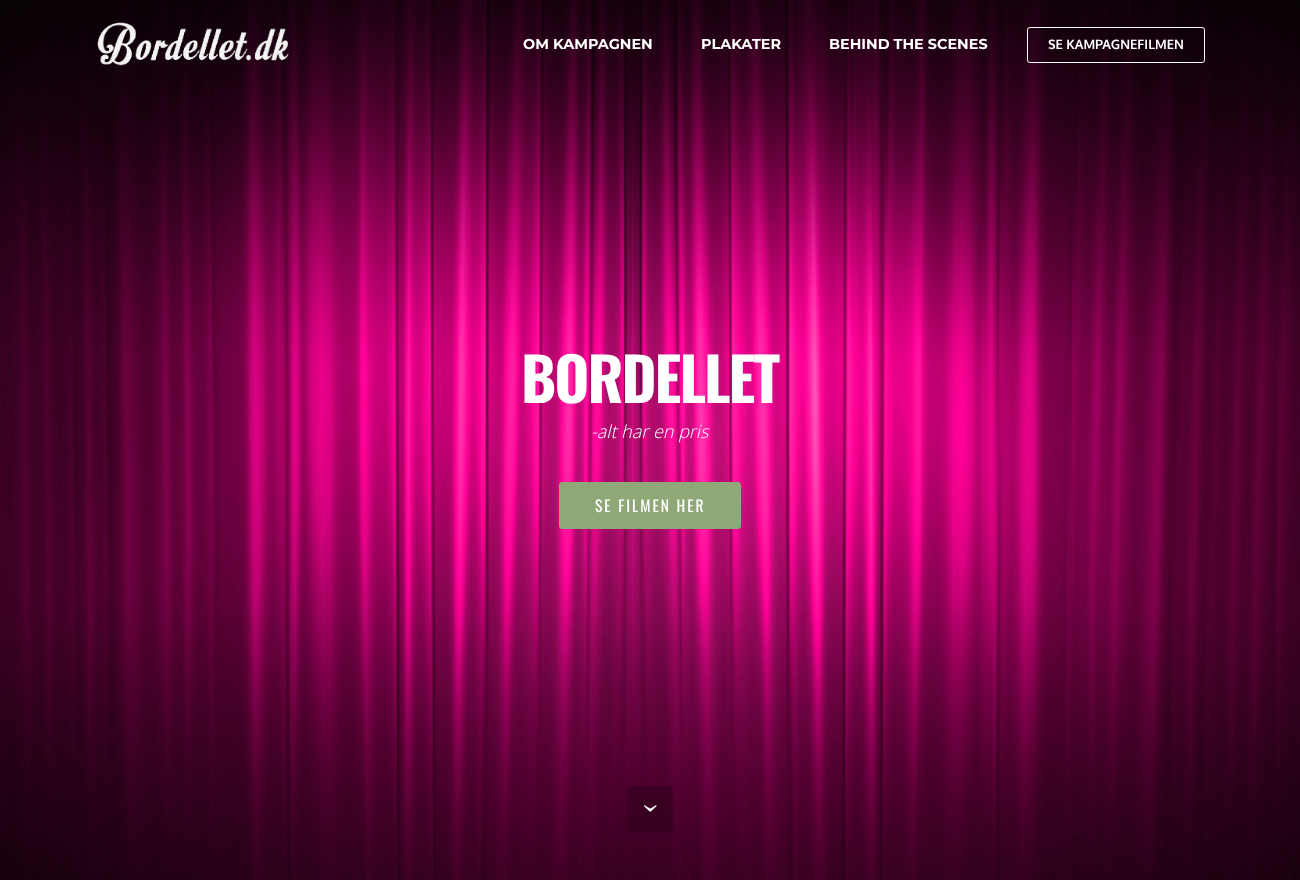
<!DOCTYPE html>
<meta charset="utf-8">
<style>body { margin: 0 } canvas { display: block }</style>
<canvas id="canvas" width="1300" height="880"></canvas>
<script type="module">
  const canvas = document.getElementById("canvas");
  const ctx = canvas.getContext("2d");
  ctx.miterLimit = 4;
  ctx.fontKerning = "normal";
  async function loadImage(src) {
    const img = new Image();
    img.src = src;
    await img.decode();
    return img;
  }

  ctx.fillStyle = "#ffffff";
  ctx.fillRect(0, 0, 1300, 880);
  ctx.drawImage(await loadImage("img2.png"), 0, 0, 1300, 880);
  ctx.drawImage(await loadImage("img1.png"), 97, 22, 192, 44);
  ctx.font = "bold 14.4px Montserrat";
  ctx.fillText("OM KAMPAGNEN", 523, 49);
  ctx.fillText("PLAKATER", 701, 49);
  ctx.fillText("BEHIND THE SCENES", 829, 49);
  ctx.beginPath();
  ctx.roundRect(1027.5, 27.5, 177, 35, 2.5);
  ctx.strokeStyle = "#ffffff";
  ctx.stroke();
  ctx.font = "bold 13px Oxygen";
  ctx.fillText("SE KAMPAGNEFILMEN", 1048, 49);
  ctx.letterSpacing = "-2px";
  ctx.font = "bold 60px Oswald";
  ctx.fillText("BORDELLET", 521, 403);
  ctx.letterSpacing = "0px";
  ctx.font = "italic 300 18px Open Sans";
  ctx.fillText("-alt har en pris", 591, 438);
  ctx.fillStyle = "#90a878";
  ctx.beginPath();
  ctx.roundRect(559.5, 482.5, 181, 46, 2.5);
  ctx.fill();
  ctx.strokeStyle = "#90a878";
  ctx.stroke();
  ctx.letterSpacing = "2px";
  ctx.font = "15.5px Oswald";
  ctx.fillStyle = "#ffffff";
  ctx.fillText("SE FILMEN HER", 595, 512);
  ctx.fillStyle = "rgba(0, 0, 0, 0.2)";
  ctx.beginPath();
  ctx.roundRect(627, 786, 46, 46, 3);
  ctx.fill();
  ctx.letterSpacing = "0px";
  ctx.font = "32px Liberation Serif";
  ctx.fillStyle = "#ffffff";
  ctx.save();
  ctx.translate(643, 803);
  ctx.rotate(90 * Math.PI / 180);
  ctx.fillText("›", 0, 0);
  ctx.restore();
</script>
